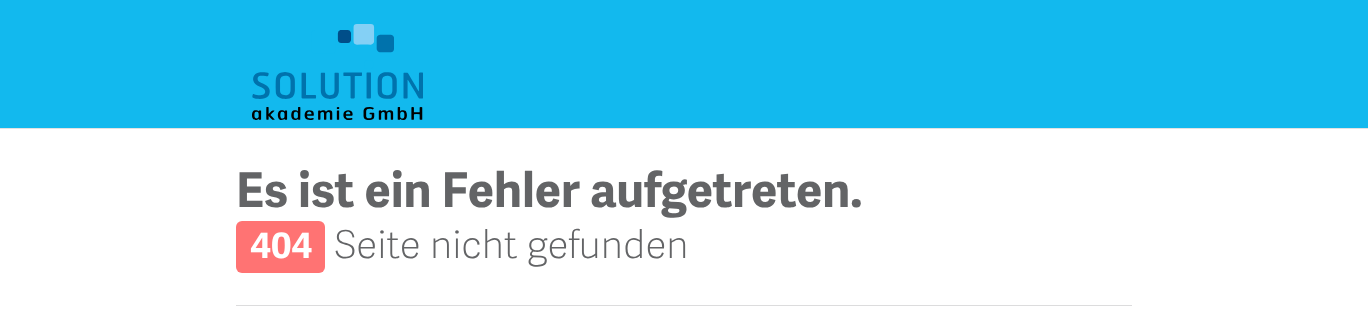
<!DOCTYPE html>
<meta charset="utf-8">
<style>body { margin: 0 } canvas { display: block }</style>
<canvas id="canvas" width="1368" height="336"></canvas>
<script type="module">
  const canvas = document.getElementById("canvas");
  const ctx = canvas.getContext("2d");
  ctx.miterLimit = 4;
  ctx.fontKerning = "normal";
  async function loadImage(src) {
    const img = new Image();
    img.src = src;
    await img.decode();
    return img;
  }

  ctx.fillStyle = "#ffffff";
  ctx.fillRect(0, 0, 1368, 336);
  ctx.fillStyle = "#12b9ee";
  ctx.fillRect(0, 0, 1368, 128);
  ctx.fillStyle = "#e2e2e3";
  ctx.fillRect(0, 128, 1368, 1);
  ctx.drawImage(await loadImage("img1.png"), 252, 24, 171, 96);
  ctx.fillStyle = "#dcdcdd";
  ctx.fillRect(236, 305, 896, 1);
  ctx.font = "bold 48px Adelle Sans";
  ctx.fillStyle = "#636466";
  ctx.fillText("Es ist ein Fehler aufgetreten.", 236, 207);
  ctx.fillStyle = "#ff7373";
  ctx.beginPath();
  ctx.roundRect(236, 221, 89, 52, 6);
  ctx.fill();
  ctx.font = "bold 35px Adelle Sans";
  ctx.fillStyle = "#ffffff";
  ctx.fillText("404", 250, 258);
  ctx.font = "100 38.5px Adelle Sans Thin";
  ctx.fillStyle = "#636466";
  ctx.fillText("Seite nicht gefunden", 334, 258);
</script>
